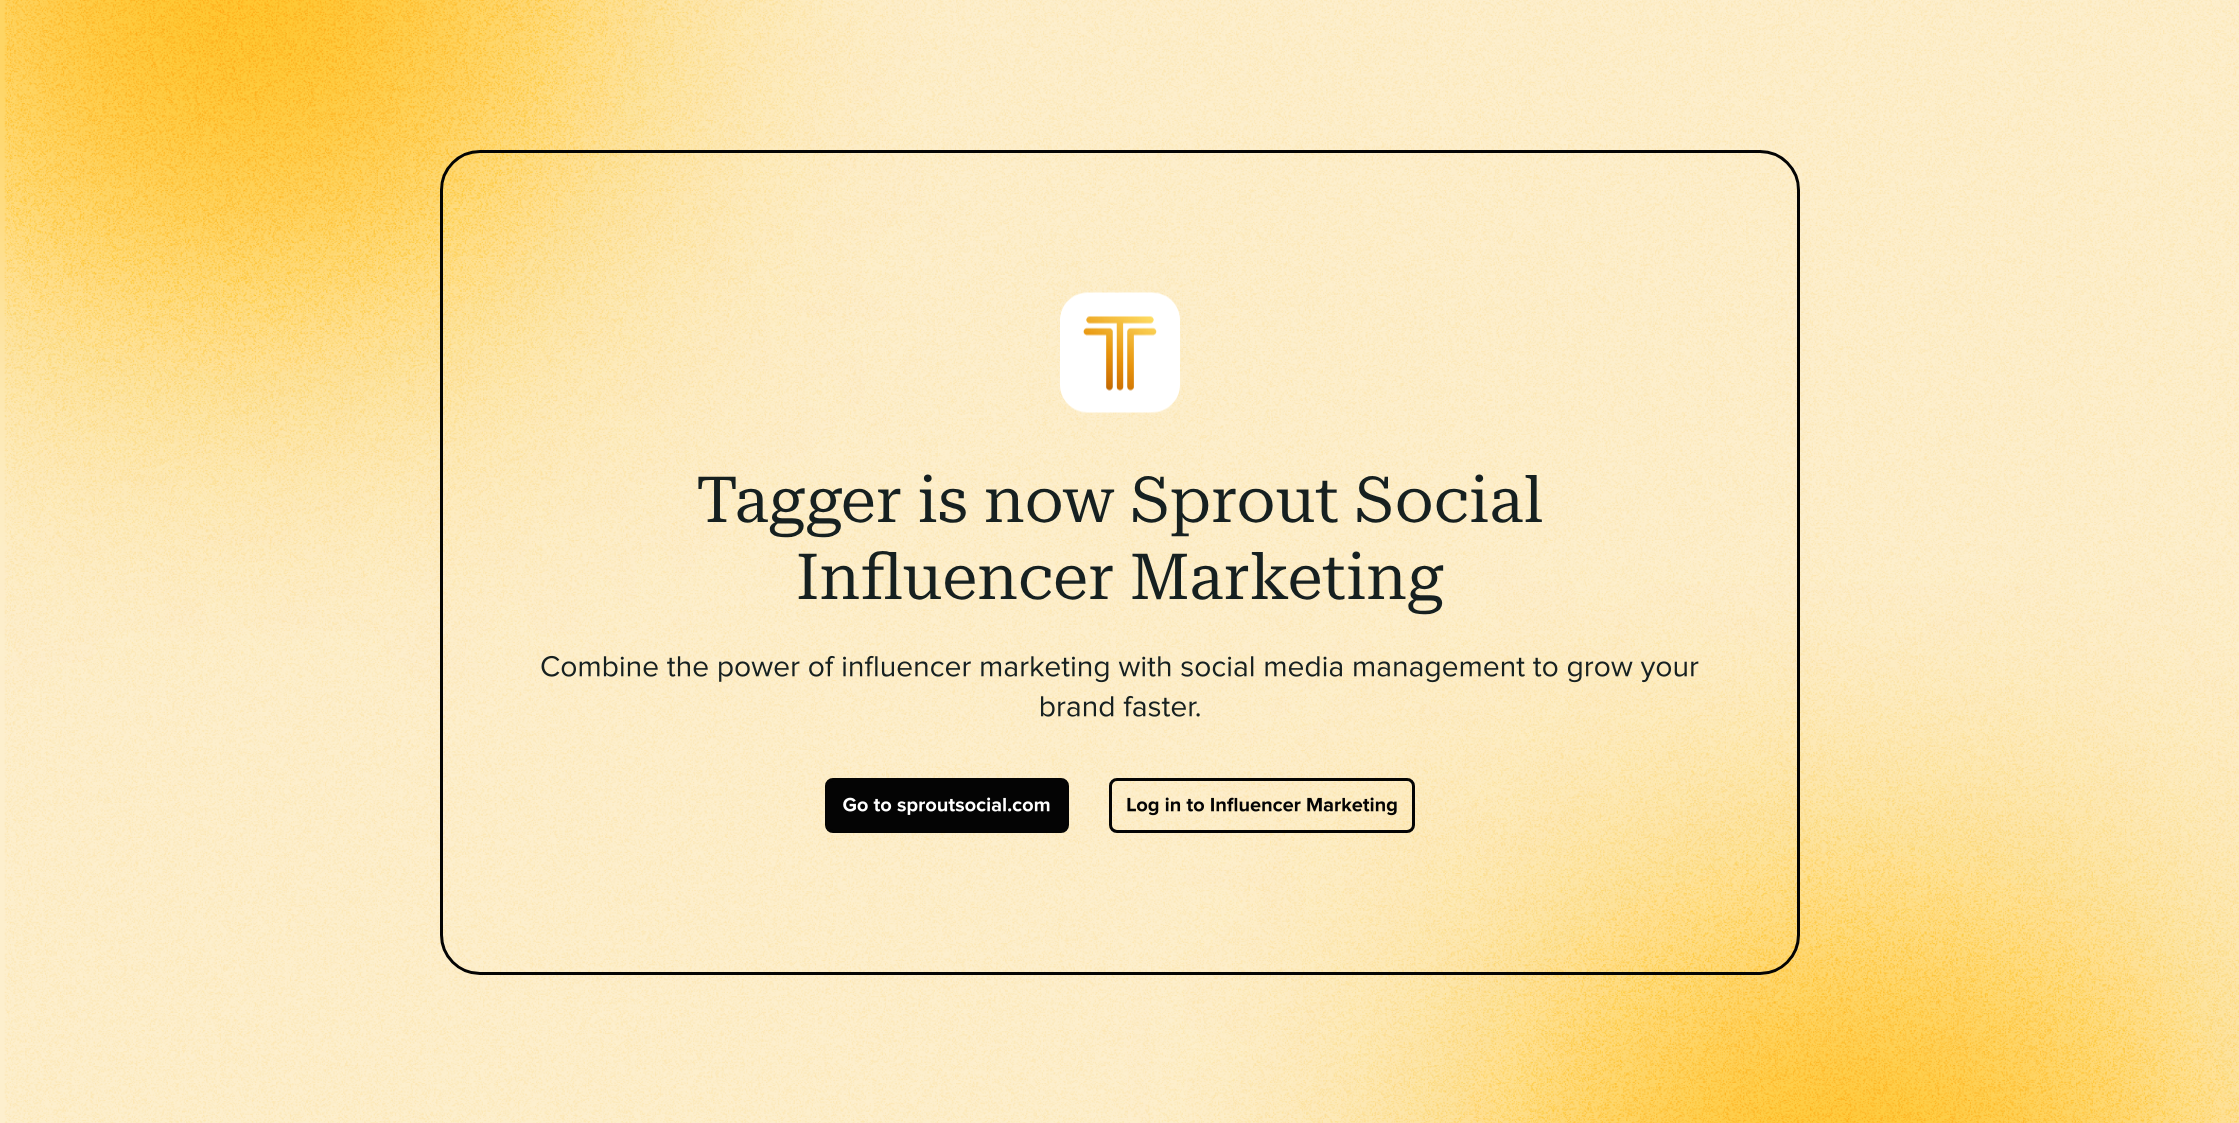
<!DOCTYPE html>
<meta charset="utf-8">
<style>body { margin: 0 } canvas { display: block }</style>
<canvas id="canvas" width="2239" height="1123"></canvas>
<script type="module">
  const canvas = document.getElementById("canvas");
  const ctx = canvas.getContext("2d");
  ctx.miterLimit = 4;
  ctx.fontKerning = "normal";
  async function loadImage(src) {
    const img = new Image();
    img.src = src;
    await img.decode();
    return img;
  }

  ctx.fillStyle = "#ffffff";
  ctx.fillRect(0, 0, 2239, 1123);
  ctx.drawImage(await loadImage("img1.png"), 0, 0, 2239, 1123);
  ctx.beginPath();
  ctx.roundRect(441.5, 151.5, 1357, 822, 38.5);
  ctx.strokeStyle = "#040404";
  ctx.lineWidth = 3;
  ctx.stroke();
  ctx.drawImage(await loadImage("img2.png"), 1060, 292, 120, 121);
  ctx.font = "63.75px Roboto Serif";
  ctx.fillStyle = "#162020";
  ctx.fillText("Tagger is now Sprout Social", 696, 522);
  ctx.fillText("Influencer Marketing", 796, 599);
  ctx.drawImage(await loadImage("img3.png"), 541, 655, 1158, 28);
  ctx.drawImage(await loadImage("img4.png"), 1041, 695, 159, 22);
  ctx.fillStyle = "#040404";
  ctx.beginPath();
  ctx.roundRect(826.5, 779.5, 241, 52, 6.5);
  ctx.fill();
  ctx.stroke();
  ctx.drawImage(await loadImage("img5.png"), 843, 797, 207, 18);
  ctx.beginPath();
  ctx.roundRect(1110.5, 779.5, 303, 52, 6.5);
  ctx.stroke();
  ctx.drawImage(await loadImage("img6.png"), 1127, 797, 270, 19);
</script>
